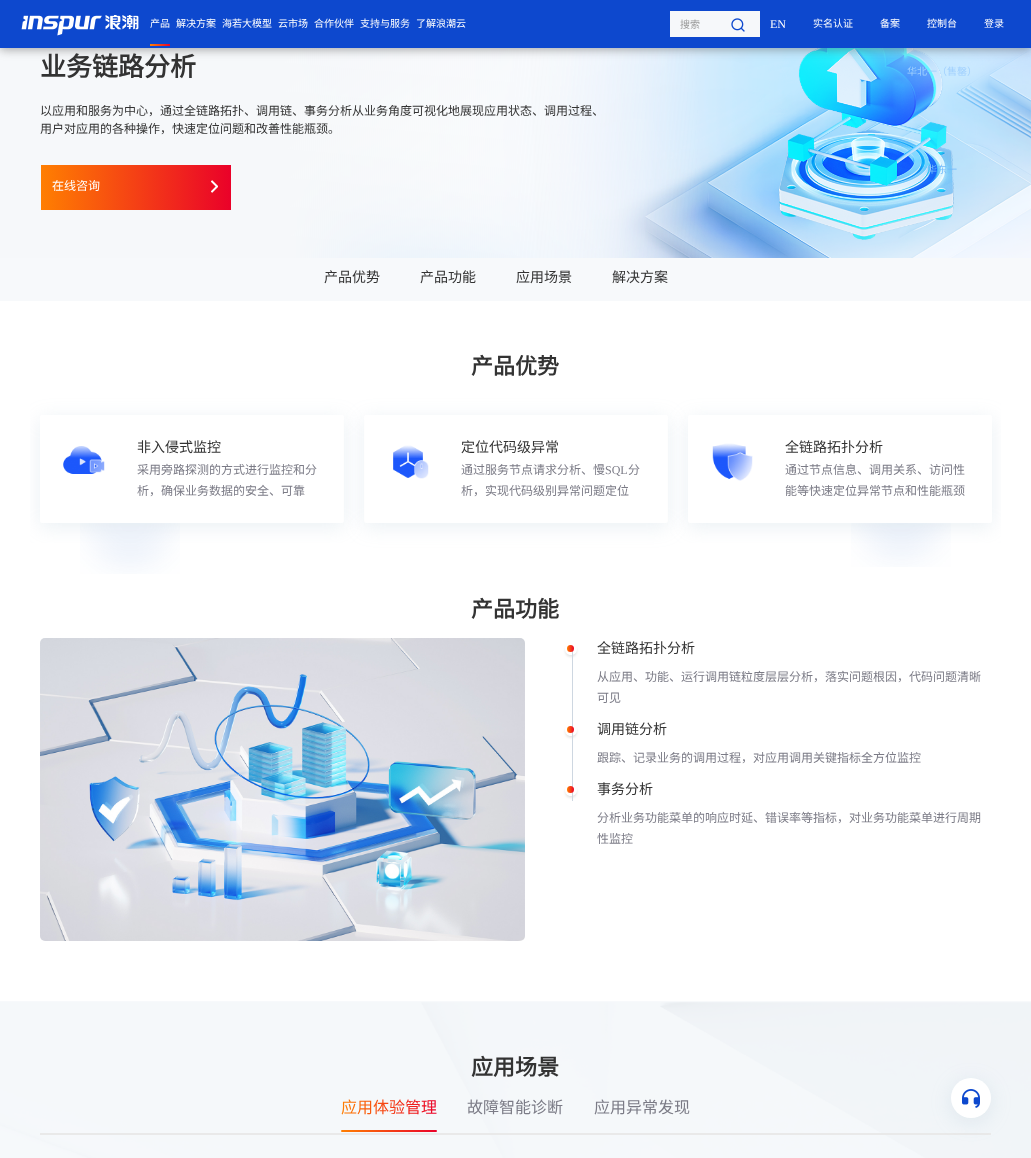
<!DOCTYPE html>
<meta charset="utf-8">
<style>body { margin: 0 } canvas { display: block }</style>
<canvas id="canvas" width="1031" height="1158"></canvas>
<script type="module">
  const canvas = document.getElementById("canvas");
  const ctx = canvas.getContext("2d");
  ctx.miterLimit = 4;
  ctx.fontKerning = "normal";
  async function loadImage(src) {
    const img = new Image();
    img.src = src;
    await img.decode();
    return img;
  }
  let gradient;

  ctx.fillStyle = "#ffffff";
  ctx.fillRect(0, 0, 1031, 1158);
  ctx.drawImage(await loadImage("img3.png"), 0, 48, 1031, 210);
  ctx.fillStyle = "rgba(91, 91, 91, 0.5)";
  ctx.filter = "blur(5px)";
  ctx.beginPath();
  ctx.rect(0, 2, 1031, 48);
  ctx.fill();
  ctx.filter = "none";
  ctx.fillStyle = "#0d48ce";
  ctx.fillRect(0, 0, 1031, 48);
  ctx.drawImage(await loadImage("img1.png"), 21, 15, 118, 21);
  ctx.font = "10px Noto Sans CJK SC";
  ctx.fillStyle = "#ffffff";
  ctx.fillText("产品", 150, 27);
  gradient = ctx.createLinearGradient(150, 45, 170, 45);
  gradient.addColorStop(0, "#ff7f01");
  gradient.addColorStop(1, "#ea0129");
  ctx.fillStyle = gradient;
  ctx.fillRect(150, 44, 20, 2);
  ctx.fillStyle = "#ffffff";
  ctx.fillText("解决方案", 176, 27);
  ctx.fillText("海若大模型", 222, 27);
  ctx.fillText("云市场", 278, 27);
  ctx.fillText("合作伙伴", 314, 27);
  ctx.fillText("支持与服务", 360, 27);
  ctx.fillText("了解浪潮云", 416, 27);
  ctx.fillStyle = "#f6f8fa";
  ctx.fillRect(670, 11, 90, 26);
  ctx.fillStyle = "#999999";
  ctx.fillText("搜索", 680, 28);
  ctx.drawImage(await loadImage("img2.png"), 731, 18, 14, 14);
  ctx.font = "12px Liberation Serif";
  ctx.fillStyle = "#ffffff";
  ctx.fillText("EN", 770, 28);
  ctx.font = "10px Noto Sans CJK SC";
  ctx.fillText("实名认证", 813, 27);
  ctx.fillText("备案", 880, 27);
  ctx.fillText("控制台", 927, 27);
  ctx.fillStyle = "#a0d0fe";
  ctx.fillText("华北一（售罄）", 907, 75);
  ctx.fillStyle = "#74bafb";
  ctx.fillText("华东一", 927, 173);
  ctx.fillStyle = "#ffffff";
  ctx.fillText("登录", 984, 27);
  ctx.font = "bold 26px Noto Sans CJK SC";
  ctx.fillStyle = "#333333";
  ctx.fillText("业务链路分析", 40, 76);
  ctx.font = "12px Noto Sans CJK SC";
  ctx.fillText("以应用和服务为中心，通过全链路拓扑、调用链、事务分析从业务角度可视化地展现应用状态、调用过程、", 40, 115);
  ctx.fillText("用户对应用的各种操作，快速定位问题和改善性能瓶颈。", 40, 133);
  gradient = ctx.createLinearGradient(41, 187, 231, 187);
  gradient.addColorStop(0, "#ff7f01");
  gradient.addColorStop(1, "#ea0129");
  ctx.fillStyle = gradient;
  ctx.fillRect(41, 165, 190, 45);
  ctx.fillStyle = "#ffffff";
  ctx.fillText("在线咨询", 52, 190);
  ctx.drawImage(await loadImage("img4.png"), 211, 180, 7, 13);
  ctx.fillStyle = "#f7f9fb";
  ctx.fillRect(0, 258, 1031, 43);
  ctx.font = "14px Noto Sans CJK SC";
  ctx.fillStyle = "#333333";
  ctx.fillText("产品优势", 324, 282);
  ctx.fillText("产品功能", 420, 282);
  ctx.fillText("应用场景", 516, 282);
  ctx.fillText("解决方案", 612, 282);
  ctx.font = "bold 22px Noto Sans CJK SC";
  ctx.fillText("产品优势", 471, 374);
  ctx.drawImage(await loadImage("img8.png"), 80, 523, 100, 51);
  ctx.save();
  ctx.beginPath();
  ctx.rect(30, 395, 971, 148);
  ctx.clip();
  ctx.fillStyle = "rgba(149, 181, 201, 0.2)";
  ctx.filter = "blur(10px)";
  ctx.beginPath();
  ctx.roundRect(40, 419, 304, 108, 2);
  ctx.fill();
  ctx.filter = "none";
  ctx.restore();
  ctx.fillStyle = "#ffffff";
  ctx.beginPath();
  ctx.roundRect(40, 415, 304, 108, 2);
  ctx.fill();
  ctx.drawImage(await loadImage("img5.png"), 63, 446, 42, 28);
  ctx.font = "14px Noto Sans CJK SC";
  ctx.fillStyle = "#333333";
  ctx.fillText("非入侵式监控", 137, 452);
  ctx.font = "12px Noto Sans CJK SC";
  ctx.fillStyle = "#7b7b86";
  ctx.fillText("采用旁路探测的方式进行监控和分", 137, 474);
  ctx.fillText("析，确保业务数据的安全、可靠", 137, 495);
  ctx.save();
  ctx.beginPath();
  ctx.moveTo(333, 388);
  ctx.lineTo(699, 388);
  ctx.lineTo(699, 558);
  ctx.lineTo(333, 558);
  ctx.closePath();
  ctx.moveTo(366, 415);
  ctx.lineTo(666, 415);
  ctx.bezierCurveTo(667, 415, 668, 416, 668, 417);
  ctx.lineTo(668, 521);
  ctx.bezierCurveTo(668, 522, 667, 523, 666, 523);
  ctx.lineTo(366, 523);
  ctx.bezierCurveTo(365, 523, 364, 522, 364, 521);
  ctx.lineTo(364, 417);
  ctx.bezierCurveTo(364, 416, 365, 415, 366, 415);
  ctx.closePath();
  ctx.clip("evenodd");
  ctx.fillStyle = "rgba(149, 181, 201, 0.2)";
  ctx.filter = "blur(10px)";
  ctx.beginPath();
  ctx.roundRect(364, 419, 304, 108, 2);
  ctx.fill();
  ctx.filter = "none";
  ctx.restore();
  ctx.drawImage(await loadImage("img6.png"), 393, 445, 36, 34);
  ctx.font = "14px Noto Sans CJK SC";
  ctx.fillStyle = "#333333";
  ctx.fillText("定位代码级异常", 461, 452);
  ctx.font = "12px Noto Sans CJK SC";
  ctx.fillStyle = "#7b7b86";
  ctx.fillText("通过服务节点请求分析、慢", 461, 474);
  ctx.font = "12px Liberation Serif";
  ctx.fillText("SQL", 605, 474);
  ctx.font = "12px Noto Sans CJK SC";
  ctx.fillText("分", 628, 474);
  ctx.fillText("析，实现代码级别异常问题定位", 461, 495);
  ctx.drawImage(await loadImage("img9.png"), 851, 523, 100, 44);
  ctx.save();
  ctx.beginPath();
  ctx.rect(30, 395, 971, 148);
  ctx.clip();
  ctx.fillStyle = "rgba(149, 181, 201, 0.2)";
  ctx.filter = "blur(10px)";
  ctx.beginPath();
  ctx.roundRect(688, 419, 304, 108, 2);
  ctx.fill();
  ctx.filter = "none";
  ctx.restore();
  ctx.fillStyle = "#ffffff";
  ctx.beginPath();
  ctx.roundRect(688, 415, 304, 108, 2);
  ctx.fill();
  ctx.drawImage(await loadImage("img7.png"), 712, 443, 41, 38);
  ctx.font = "14px Noto Sans CJK SC";
  ctx.fillStyle = "#333333";
  ctx.fillText("全链路拓扑分析", 785, 452);
  ctx.font = "12px Noto Sans CJK SC";
  ctx.fillStyle = "#7b7b86";
  ctx.fillText("通过节点信息、调用关系、访问性", 785, 474);
  ctx.fillText("能等快速定位异常节点和性能瓶颈", 785, 495);
  ctx.font = "bold 22px Noto Sans CJK SC";
  ctx.fillStyle = "#333333";
  ctx.fillText("产品功能", 471, 617);
  ctx.drawImage(await loadImage("img10.png"), 40, 638, 485, 303);
  ctx.save();
  ctx.beginPath();
  ctx.moveTo(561, 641);
  ctx.lineTo(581, 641);
  ctx.lineTo(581, 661);
  ctx.lineTo(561, 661);
  ctx.closePath();
  ctx.moveTo(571, 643);
  ctx.bezierCurveTo(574.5, 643, 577, 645.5, 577, 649);
  ctx.bezierCurveTo(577, 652.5, 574.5, 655, 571, 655);
  ctx.bezierCurveTo(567.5, 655, 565, 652.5, 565, 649);
  ctx.bezierCurveTo(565, 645.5, 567.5, 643, 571, 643);
  ctx.closePath();
  ctx.clip("evenodd");
  ctx.fillStyle = "rgba(0, 0, 0, 0.1)";
  ctx.filter = "blur(1px)";
  ctx.beginPath();
  ctx.roundRect(565, 645, 12, 12, 6);
  ctx.fill();
  ctx.filter = "none";
  ctx.restore();
  ctx.save();
  ctx.beginPath();
  ctx.moveTo(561, 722);
  ctx.lineTo(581, 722);
  ctx.lineTo(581, 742);
  ctx.lineTo(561, 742);
  ctx.closePath();
  ctx.moveTo(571, 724);
  ctx.bezierCurveTo(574.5, 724, 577, 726.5, 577, 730);
  ctx.bezierCurveTo(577, 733.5, 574.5, 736, 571, 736);
  ctx.bezierCurveTo(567.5, 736, 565, 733.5, 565, 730);
  ctx.bezierCurveTo(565, 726.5, 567.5, 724, 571, 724);
  ctx.closePath();
  ctx.clip("evenodd");
  ctx.fillStyle = "rgba(0, 0, 0, 0.1)";
  ctx.filter = "blur(1px)";
  ctx.beginPath();
  ctx.roundRect(565, 726, 12, 12, 6);
  ctx.fill();
  ctx.filter = "none";
  ctx.restore();
  ctx.save();
  ctx.beginPath();
  ctx.moveTo(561, 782);
  ctx.lineTo(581, 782);
  ctx.lineTo(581, 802);
  ctx.lineTo(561, 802);
  ctx.closePath();
  ctx.moveTo(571, 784);
  ctx.bezierCurveTo(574.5, 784, 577, 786.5, 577, 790);
  ctx.bezierCurveTo(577, 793.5, 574.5, 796, 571, 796);
  ctx.bezierCurveTo(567.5, 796, 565, 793.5, 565, 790);
  ctx.bezierCurveTo(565, 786.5, 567.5, 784, 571, 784);
  ctx.closePath();
  ctx.clip("evenodd");
  ctx.fillStyle = "rgba(0, 0, 0, 0.1)";
  ctx.filter = "blur(1px)";
  ctx.beginPath();
  ctx.roundRect(565, 786, 12, 12, 6);
  ctx.fill();
  ctx.filter = "none";
  ctx.restore();
  ctx.fillStyle = "#ced7e1";
  ctx.fillRect(572, 649, 1, 152);
  gradient = ctx.createLinearGradient(567, 649, 574, 649);
  gradient.addColorStop(0, "#ff7f01");
  gradient.addColorStop(1, "#ea0129");
  ctx.fillStyle = gradient;
  ctx.beginPath();
  ctx.arc(570.5, 648.5, 3.5, 0, Math.PI * 2);
  ctx.fill();
  ctx.font = "14px Noto Sans CJK SC";
  ctx.fillStyle = "#333333";
  ctx.fillText("全链路拓扑分析", 597, 653);
  ctx.font = "12px Noto Sans CJK SC";
  ctx.fillStyle = "#7b7b86";
  ctx.fillText("从应用、功能、运行调用链粒度层层分析，落实问题根因，代码问题清晰", 597, 681);
  ctx.fillText("可见", 597, 702);
  gradient = ctx.createLinearGradient(567, 730, 574, 730);
  gradient.addColorStop(0, "#ff7f01");
  gradient.addColorStop(1, "#ea0129");
  ctx.fillStyle = gradient;
  ctx.beginPath();
  ctx.arc(570.5, 729.5, 3.5, 0, Math.PI * 2);
  ctx.fill();
  ctx.font = "14px Noto Sans CJK SC";
  ctx.fillStyle = "#333333";
  ctx.fillText("调用链分析", 597, 734);
  ctx.font = "12px Noto Sans CJK SC";
  ctx.fillStyle = "#7b7b86";
  ctx.fillText("跟踪、记录业务的调用过程，对应用调用关键指标全方位监控", 597, 762);
  gradient = ctx.createLinearGradient(567, 790, 574, 790);
  gradient.addColorStop(0, "#ff7f01");
  gradient.addColorStop(1, "#ea0129");
  ctx.fillStyle = gradient;
  ctx.beginPath();
  ctx.arc(570.5, 789.5, 3.5, 0, Math.PI * 2);
  ctx.fill();
  ctx.font = "14px Noto Sans CJK SC";
  ctx.fillStyle = "#333333";
  ctx.fillText("事务分析", 597, 794);
  ctx.font = "12px Noto Sans CJK SC";
  ctx.fillStyle = "#7b7b86";
  ctx.fillText("分析业务功能菜单的响应时延、错误率等指标，对业务功能菜单进行周期", 597, 822);
  ctx.fillText("性监控", 597, 843);
  ctx.drawImage(await loadImage("img11.png"), 0, 1001, 1031, 157);
  ctx.font = "bold 22px Noto Sans CJK SC";
  ctx.fillStyle = "#333333";
  ctx.fillText("应用场景", 471, 1075);
  ctx.font = "16px Noto Sans CJK SC";
  gradient = ctx.createLinearGradient(341, 1108, 437, 1108);
  gradient.addColorStop(0, "#ff7f01");
  gradient.addColorStop(1, "#ea0129");
  ctx.fillStyle = gradient;
  ctx.fillText("应用体验管理", 341, 1113);
  gradient = ctx.createLinearGradient(341, 1131, 437, 1131);
  gradient.addColorStop(0, "#ff7f01");
  gradient.addColorStop(1, "#ea0129");
  ctx.fillStyle = gradient;
  ctx.beginPath();
  ctx.roundRect(341, 1130, 96, 2, 1);
  ctx.fill();
  ctx.fillStyle = "#7b7b86";
  ctx.fillText("故障智能诊断", 467, 1113);
  ctx.fillText("应用异常发现", 594, 1113);
  ctx.fillStyle = "#e9e9e9";
  ctx.fillRect(40, 1133, 951, 2);
  ctx.fillStyle = "rgba(149, 181, 201, 0.2)";
  ctx.filter = "blur(10px)";
  ctx.beginPath();
  ctx.roundRect(951, 1082, 40, 40, 20);
  ctx.fill();
  ctx.filter = "none";
  ctx.fillStyle = "#ffffff";
  ctx.beginPath();
  ctx.arc(971, 1098, 20, 0, Math.PI * 2);
  ctx.fill();
  ctx.drawImage(await loadImage("img12.png"), 962, 1089, 18, 19);
</script>
